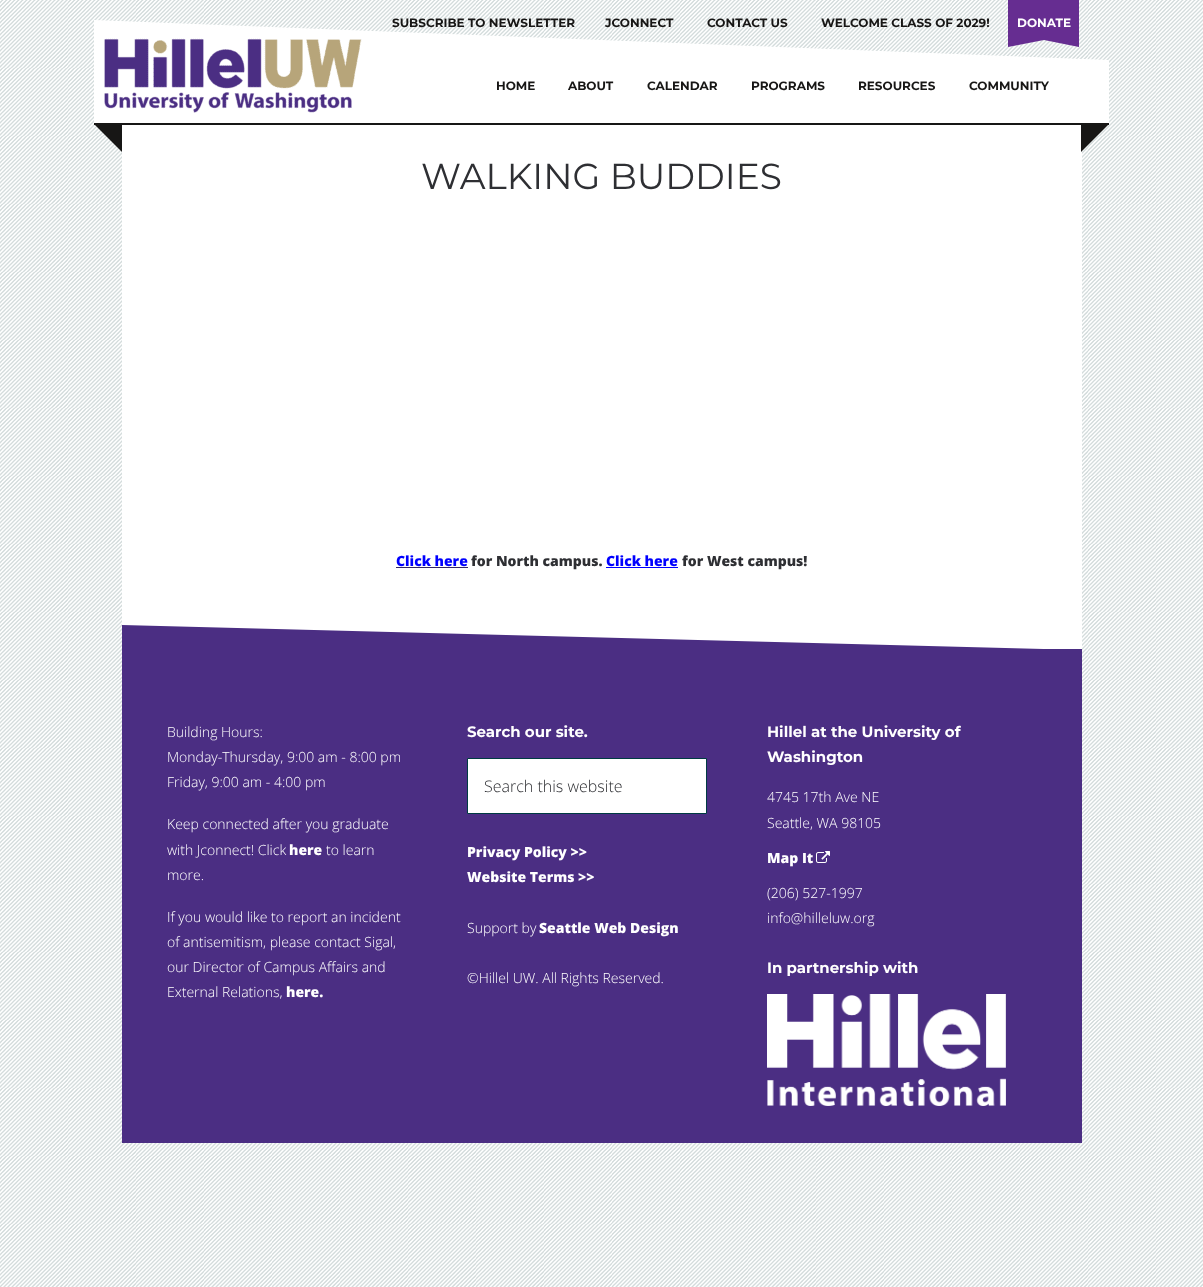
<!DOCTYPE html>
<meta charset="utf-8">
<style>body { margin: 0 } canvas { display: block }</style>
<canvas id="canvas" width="1203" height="1287"></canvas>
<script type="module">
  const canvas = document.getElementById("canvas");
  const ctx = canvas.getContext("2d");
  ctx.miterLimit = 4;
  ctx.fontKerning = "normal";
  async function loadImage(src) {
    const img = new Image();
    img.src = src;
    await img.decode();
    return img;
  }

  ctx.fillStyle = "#ffffff";
  ctx.fillRect(0, 0, 1203, 1287);
  ctx.drawImage(await loadImage("img1.png"), 0, 0, 1203, 1287);
  ctx.fillRect(94, 60, 1015, 63);
  ctx.fillStyle = "#171615";
  ctx.fillRect(94, 123, 1015, 2);
  ctx.fillStyle = "#ffffff";
  ctx.beginPath();
  ctx.moveTo(1109, 60);
  ctx.lineTo(94, 60);
  ctx.lineTo(94, 20);
  ctx.closePath();
  ctx.fill();
  ctx.font = "bold 12px Montserrat";
  ctx.fillStyle = "#171615";
  ctx.fillText("SUBSCRIBE TO NEWSLETTER", 392, 27);
  ctx.fillText("JCONNECT", 605, 27);
  ctx.fillText("CONTACT US", 707, 27);
  ctx.fillText("WELCOME CLASS OF 2029!", 821, 27);
  ctx.drawImage(await loadImage("img2.png"), 1008, 0, 71, 47);
  ctx.fillStyle = "#ffffff";
  ctx.fillText("DONATE", 1017, 27);
  ctx.drawImage(await loadImage("img3.png"), 104, 38, 258, 75);
  ctx.fillStyle = "#171615";
  ctx.fillText("HOME", 496, 90);
  ctx.fillText("ABOUT", 568, 90);
  ctx.fillText("CALENDAR", 647, 90);
  ctx.fillText("PROGRAMS", 751, 90);
  ctx.fillText("RESOURCES", 858, 90);
  ctx.fillText("COMMUNITY", 969, 90);
  ctx.beginPath();
  ctx.moveTo(94, 124);
  ctx.lineTo(122, 124);
  ctx.lineTo(122, 152);
  ctx.closePath();
  ctx.fill();
  ctx.fillStyle = "#ffffff";
  ctx.fillRect(122, 125, 960, 524);
  ctx.fillStyle = "#171615";
  ctx.beginPath();
  ctx.moveTo(1081, 124);
  ctx.lineTo(1109, 124);
  ctx.lineTo(1081, 152);
  ctx.closePath();
  ctx.fill();
  ctx.font = "36px Montserrat";
  ctx.fillStyle = "#2e2f33";
  ctx.fillText("WALKING BUDDIES", 421, 189);
  ctx.font = "800 14px Open Sans";
  ctx.fillStyle = "#0000ff";
  ctx.fillText("Click here", 396, 566);
  ctx.fillStyle = "#332765";
  ctx.fillRect(396, 567, 72, 1);
  ctx.fillStyle = "#2e2f33";
  ctx.fillText("for North campus.", 471, 566);
  ctx.fillStyle = "#0000ff";
  ctx.fillRect(606, 567, 72, 1);
  ctx.fillText("Click here", 606, 566);
  ctx.fillStyle = "#2e2f33";
  ctx.fillText("for West campus!", 682, 566);
  ctx.fillStyle = "#4b2e83";
  ctx.fillRect(122, 649, 960, 494);
  ctx.beginPath();
  ctx.moveTo(1082, 650);
  ctx.lineTo(122, 650);
  ctx.lineTo(122, 625);
  ctx.closePath();
  ctx.fill();
  ctx.font = "300 14px Open Sans";
  ctx.fillStyle = "#ffffff";
  ctx.fillText("Building Hours:", 167, 737);
  ctx.fillText("Monday-Thursday, 9:00 am - 8:00 pm", 167, 762);
  ctx.fillText("Friday, 9:00 am - 4:00 pm", 167, 787);
  ctx.fillText("Keep connected after you graduate", 167, 829);
  ctx.fillText("with Jconnect! Click", 167, 855);
  ctx.font = "800 14px Open Sans";
  ctx.fillText("here", 289, 855);
  ctx.font = "300 14px Open Sans";
  ctx.fillText("to learn", 326, 855);
  ctx.fillText("more.", 167, 880);
  ctx.fillText("If you would like to report an incident", 167, 922);
  ctx.fillText("of antisemitism, please contact Sigal,", 167, 947);
  ctx.fillText("our Director of Campus Affairs and", 167, 972);
  ctx.fillText("External Relations,", 167, 997);
  ctx.font = "800 14px Open Sans";
  ctx.fillText("here.", 286, 997);
  ctx.font = "bold 15px Montserrat";
  ctx.fillText("Search our site.", 467, 737);
  ctx.beginPath();
  ctx.rect(467.5, 758.5, 239, 55);
  ctx.fill();
  ctx.strokeStyle = "#003b42";
  ctx.stroke();
  ctx.font = "300 16px Open Sans";
  ctx.fillStyle = "#2e2f33";
  ctx.fillText("Search this website", 484, 792);
  ctx.font = "800 14px Open Sans";
  ctx.fillStyle = "#ffffff";
  ctx.fillText("Privacy Policy >>", 467, 857);
  ctx.fillText("Website Terms >>", 467, 882);
  ctx.font = "300 14px Open Sans";
  ctx.fillText("Support by", 467, 933);
  ctx.font = "800 14px Open Sans";
  ctx.fillText("Seattle Web Design", 539, 933);
  ctx.font = "300 14px Open Sans";
  ctx.fillText("©Hillel UW. All Rights Reserved.", 467, 983);
  ctx.font = "bold 15px Montserrat";
  ctx.fillText("Hillel at the University of", 767, 737);
  ctx.fillText("Washington", 767, 762);
  ctx.font = "300 14px Open Sans";
  ctx.fillText("4745 17th Ave NE", 767, 802);
  ctx.fillText("Seattle, WA 98105", 767, 828);
  ctx.font = "800 14px Open Sans";
  ctx.fillText("Map It", 767, 863);
  ctx.drawImage(await loadImage("img4.png"), 816, 851, 14, 12);
  ctx.font = "300 14px Open Sans";
  ctx.fillText("(206) 527-1997", 767, 898);
  ctx.fillText("info@hilleluw.org", 767, 923);
  ctx.font = "bold 15px Montserrat";
  ctx.fillText("In partnership with", 767, 973);
  ctx.drawImage(await loadImage("img5.png"), 767, 994, 239, 112);
</script>
